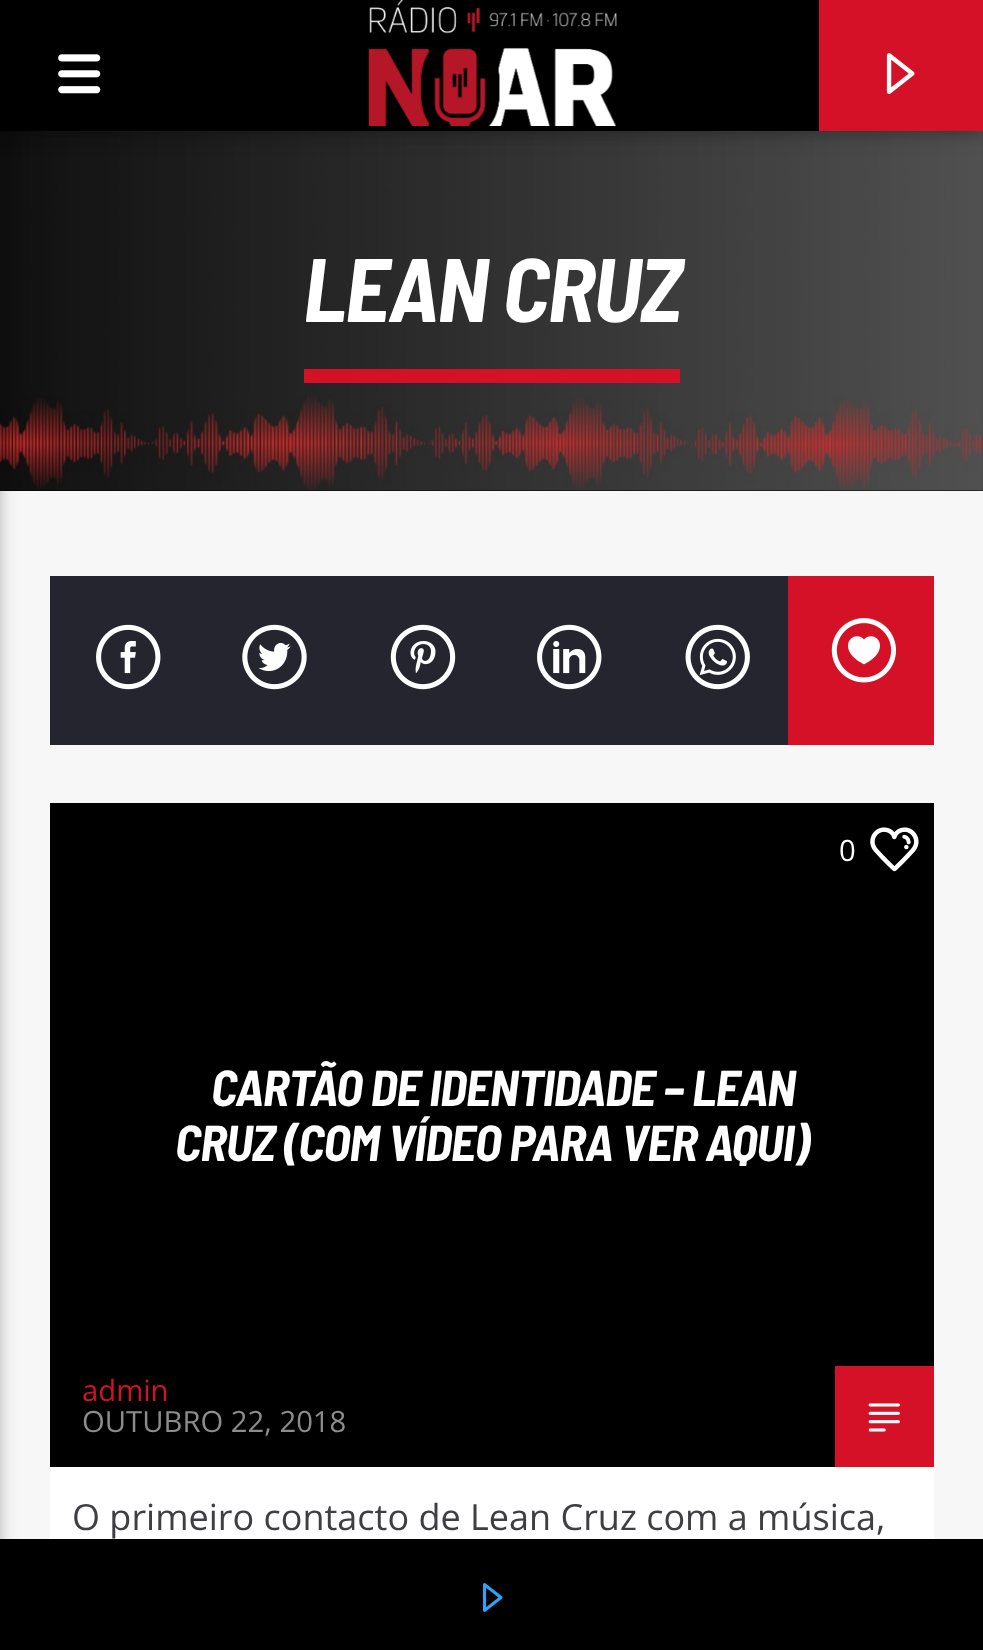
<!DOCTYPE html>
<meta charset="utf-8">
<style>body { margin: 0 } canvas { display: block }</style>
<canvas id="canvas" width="983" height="1650"></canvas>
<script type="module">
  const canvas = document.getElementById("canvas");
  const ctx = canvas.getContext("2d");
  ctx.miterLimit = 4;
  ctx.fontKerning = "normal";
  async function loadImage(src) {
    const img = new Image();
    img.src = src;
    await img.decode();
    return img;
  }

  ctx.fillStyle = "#f7f7f7";
  ctx.fillRect(0, 0, 983, 1650);
  ctx.fillStyle = "#000000";
  ctx.fillRect(0, 131, 983, 360);
  ctx.drawImage(await loadImage("img4.png"), 0, 131, 983, 360);
  ctx.fillStyle = "rgba(0, 0, 0, 0.12)";
  ctx.filter = "blur(11px)";
  ctx.beginPath();
  ctx.rect(0, 5, 983, 130);
  ctx.fill();
  ctx.filter = "none";
  ctx.fillStyle = "rgba(0, 0, 0, 0.16)";
  ctx.filter = "blur(5.5px)";
  ctx.beginPath();
  ctx.rect(0, 5, 983, 130);
  ctx.fill();
  ctx.filter = "none";
  ctx.fillStyle = "#000000";
  ctx.fillRect(0, 0, 819, 131);
  ctx.drawImage(await loadImage("img1.png"), 58, 54, 43, 40);
  ctx.drawImage(await loadImage("img2.png"), 368, 0, 249, 126);
  ctx.fillStyle = "#d41126";
  ctx.fillRect(819, 0, 164, 131);
  ctx.drawImage(await loadImage("img3.png"), 886, 53, 29, 41);
  ctx.fillStyle = "#000000";
  ctx.fillRect(0, 1539, 983, 111);
  ctx.fillStyle = "rgba(0, 0, 0, 0.12)";
  ctx.filter = "blur(11px)";
  ctx.beginPath();
  ctx.rect(-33, 5, 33, 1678);
  ctx.fill();
  ctx.filter = "none";
  ctx.fillStyle = "rgba(0, 0, 0, 0.16)";
  ctx.filter = "blur(5.5px)";
  ctx.beginPath();
  ctx.rect(-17, 5, 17, 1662);
  ctx.fill();
  ctx.filter = "none";
  ctx.fillStyle = "#d41126";
  ctx.fillRect(304, 369, 376, 14);
  ctx.letterSpacing = "-1.75px";
  ctx.font = "italic bold 90px Barlow Semi Condensed";
  ctx.fillStyle = "#ffffff";
  ctx.fillText("LEAN CRUZ", 303, 322);
  ctx.fillStyle = "#252530";
  ctx.fillRect(50, 576, 738, 169);
  ctx.drawImage(await loadImage("img5.png"), 96, 624, 65, 66);
  ctx.drawImage(await loadImage("img6.png"), 242, 624, 65, 66);
  ctx.drawImage(await loadImage("img7.png"), 390, 624, 66, 66);
  ctx.drawImage(await loadImage("img8.png"), 537, 624, 65, 66);
  ctx.drawImage(await loadImage("img9.png"), 685, 624, 65, 66);
  ctx.fillStyle = "#d41126";
  ctx.fillRect(788, 576, 146, 169);
  ctx.drawImage(await loadImage("img10.png"), 831, 618, 66, 65);
  ctx.fillStyle = "#000000";
  ctx.fillRect(50, 803, 884, 664);
  ctx.letterSpacing = "0px";
  ctx.font = "29.25px Open Sans";
  ctx.fillStyle = "#ffffff";
  ctx.fillText("0", 839, 861);
  ctx.drawImage(await loadImage("img11.png"), 870, 827, 49, 45);
  ctx.letterSpacing = "-1px";
  ctx.font = "italic bold 50.4px Barlow Semi Condensed";
  ctx.fillText("CARTÃO DE IDENTIDADE – LEAN", 211, 1106);
  ctx.fillText("CRUZ (COM VÍDEO PARA VER AQUI)", 175, 1161);
  ctx.letterSpacing = "0px";
  ctx.font = "29.25px Open Sans";
  ctx.fillStyle = "#d41126";
  ctx.fillText("admin", 82, 1401);
  ctx.fillStyle = "#8c8c8c";
  ctx.fillText("OUTUBRO 22, 2018", 82, 1432);
  ctx.fillStyle = "#d41126";
  ctx.fillRect(835, 1366, 99, 101);
  ctx.drawImage(await loadImage("img12.png"), 868, 1403, 32, 29);
  ctx.fillStyle = "#ffffff";
  ctx.fillRect(50, 1467, 884, 72);
  ctx.font = "36px Open Sans";
  ctx.fillStyle = "#3e3e43";
  ctx.fillText("O primeiro contacto de Lean Cruz com a música,", 72, 1530);
  ctx.drawImage(await loadImage("img13.png"), 482, 1583, 21, 29);
</script>
